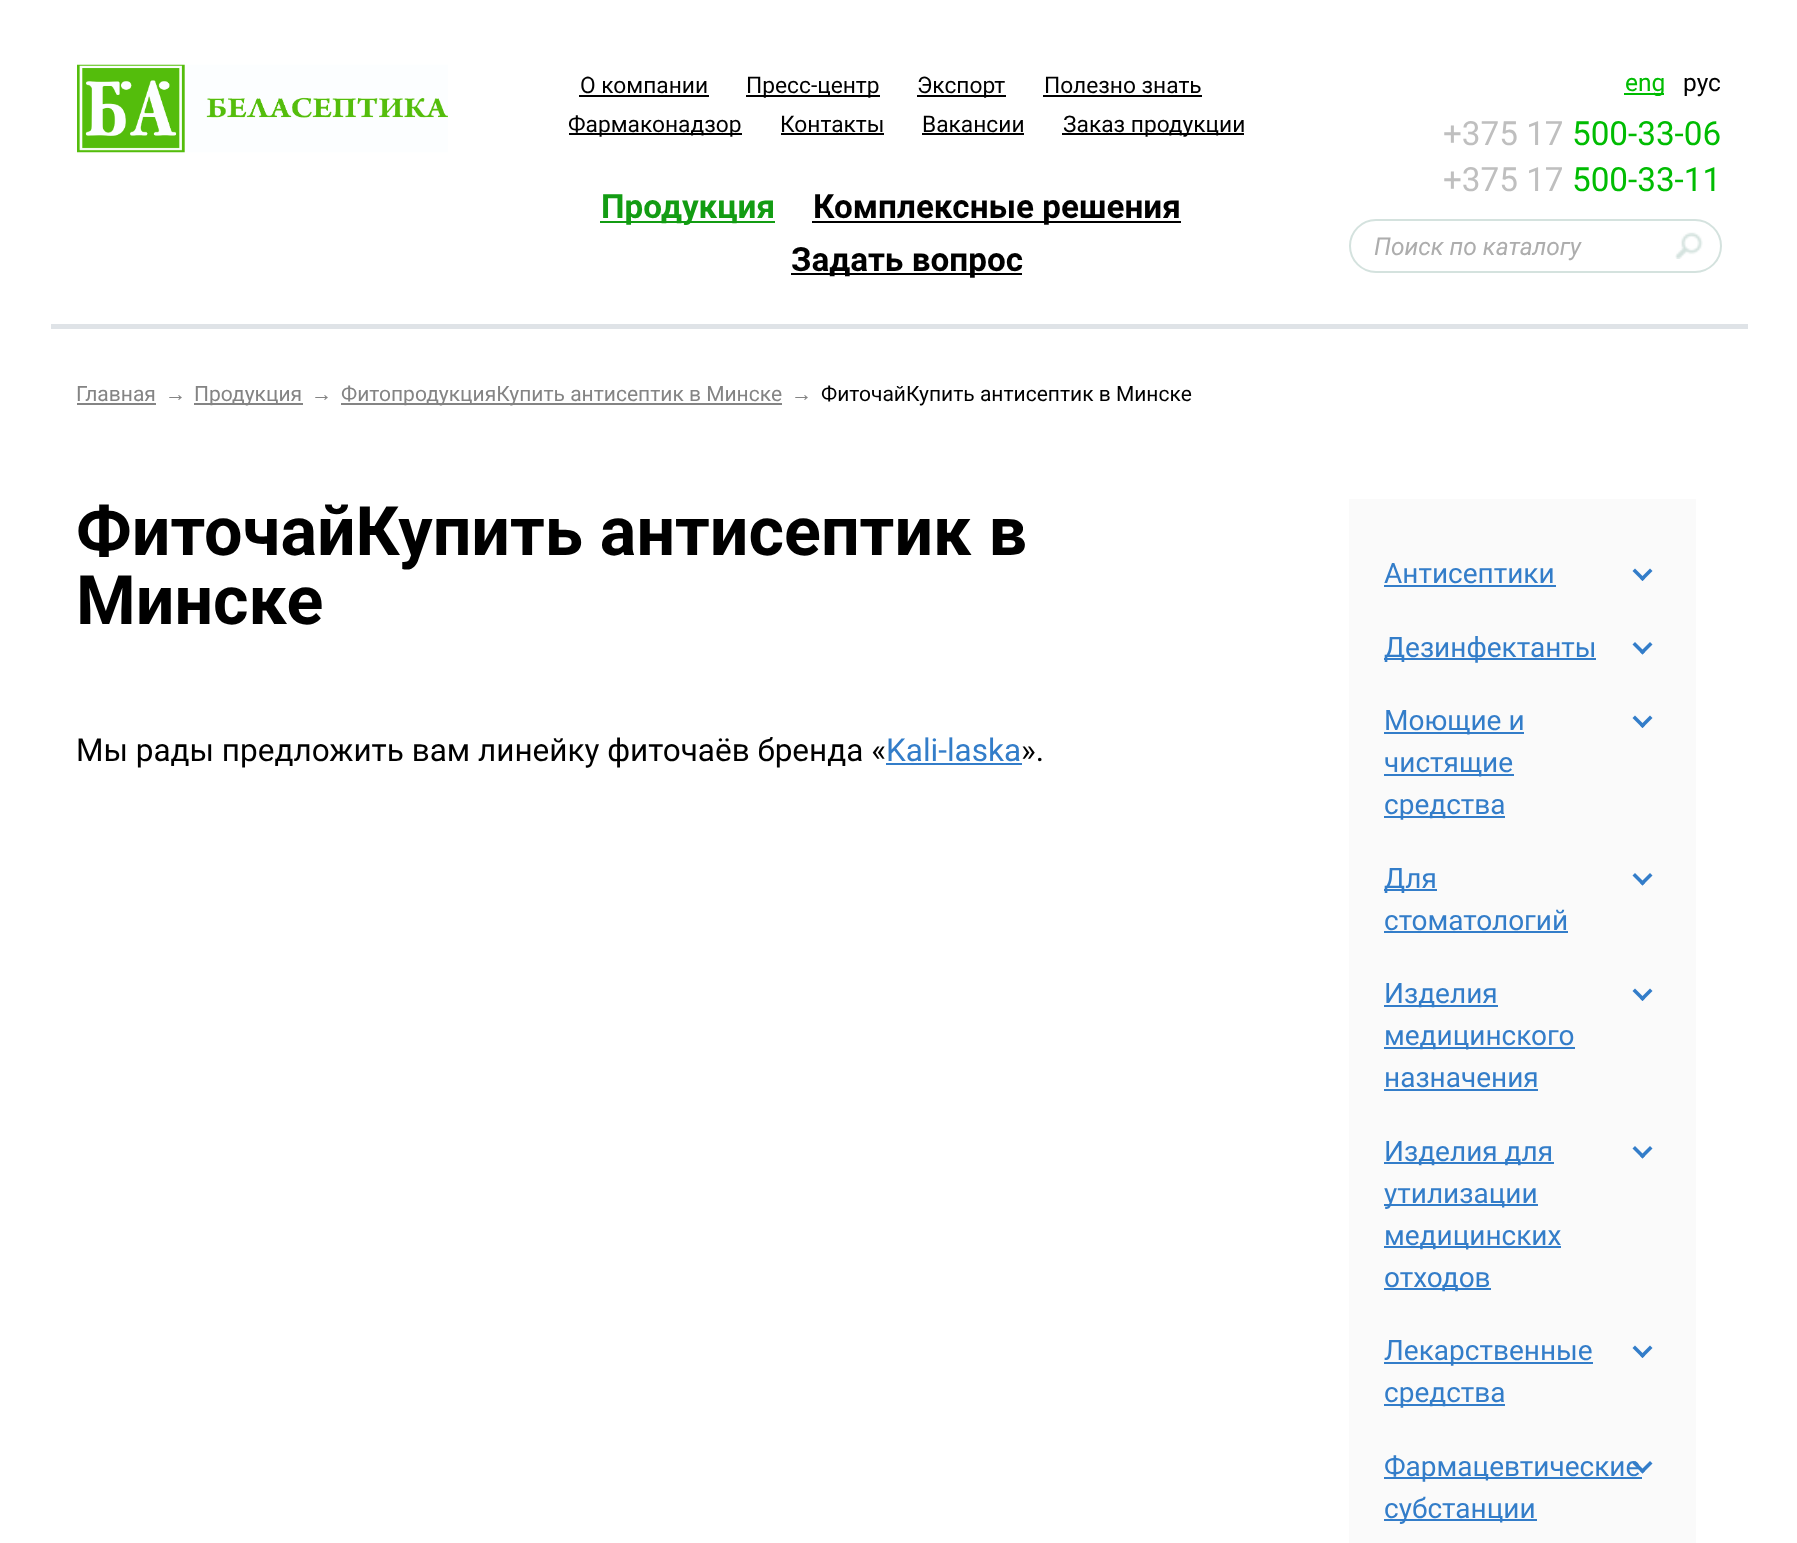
<!DOCTYPE html>
<meta charset="utf-8">
<style>body { margin: 0 } canvas { display: block }</style>
<canvas id="canvas" width="1797" height="1543"></canvas>
<script type="module">
  const canvas = document.getElementById("canvas");
  const ctx = canvas.getContext("2d");
  ctx.miterLimit = 4;
  ctx.fontKerning = "normal";
  async function loadImage(src) {
    const img = new Image();
    img.src = src;
    await img.decode();
    return img;
  }

  ctx.fillStyle = "#ffffff";
  ctx.fillRect(0, 0, 1797, 1543);
  ctx.fillStyle = "#dfe3e7";
  ctx.fillRect(51, 324, 1697, 5);
  ctx.drawImage(await loadImage("img1.png"), 77, 64, 371, 89);
  ctx.font = "22.75px Roboto";
  ctx.fillStyle = "#000000";
  ctx.fillText("O компании", 580, 93);
  ctx.fillRect(579, 95, 130, 2);
  ctx.fillRect(746, 95, 134, 2);
  ctx.fillText("Пресс-центр", 746, 93);
  ctx.fillRect(917, 95, 89, 2);
  ctx.fillText("Экспорт", 917, 93);
  ctx.fillText("Полезно знать", 1044, 93);
  ctx.fillRect(1043, 95, 159, 2);
  ctx.fillRect(569, 133, 173, 2);
  ctx.fillText("Фармаконадзор", 568, 132);
  ctx.fillText("Контакты", 780, 132);
  ctx.fillRect(781, 133, 103, 2);
  ctx.fillText("Вакансии", 922, 132);
  ctx.fillRect(922, 133, 102, 2);
  ctx.fillRect(1062, 133, 182, 2);
  ctx.fillText("Заказ продукции", 1063, 132);
  ctx.fillStyle = "#139c13";
  ctx.fillRect(600, 221, 175, 2);
  ctx.font = "bold 33.25px Roboto";
  ctx.fillText("Продукция", 601, 218);
  ctx.fillStyle = "#000000";
  ctx.fillRect(812, 221, 369, 2);
  ctx.fillText("Комплексные решения", 813, 218);
  ctx.fillRect(791, 273, 231, 2);
  ctx.fillText("Задать вопрос", 791, 271);
  ctx.fillStyle = "#00bc02";
  ctx.fillRect(1624, 93, 40, 2);
  ctx.font = "24.5px Roboto";
  ctx.fillText("eng", 1625, 91);
  ctx.fillStyle = "#000000";
  ctx.fillText("рус", 1683, 91);
  ctx.font = "33.25px Roboto";
  ctx.fillStyle = "#bfbfbf";
  ctx.fillText("+375 17", 1443, 145);
  ctx.fillStyle = "#00bc02";
  ctx.fillText("500-33-06", 1572, 145);
  ctx.fillStyle = "#bfbfbf";
  ctx.fillText("+375 17", 1443, 191);
  ctx.fillStyle = "#00bc02";
  ctx.fillText("500-33-11", 1572, 191);
  ctx.beginPath();
  ctx.roundRect(1350, 220, 371, 52, 26);
  ctx.strokeStyle = "#d4e2de";
  ctx.lineWidth = 2;
  ctx.stroke();
  ctx.font = "italic 24.5px Roboto";
  ctx.fillStyle = "#adadad";
  ctx.fillText("Поиск по каталогу", 1374, 255);
  ctx.drawImage(await loadImage("img2.png"), 1675, 232, 28, 27);
  ctx.font = "21px Roboto";
  ctx.fillStyle = "#848484";
  ctx.fillText("Главная", 76, 401);
  ctx.fillRect(77, 403, 79, 2);
  ctx.font = "21px Liberation Sans";
  ctx.fillText("→", 165, 401);
  ctx.fillRect(194, 403, 109, 2);
  ctx.font = "21px Roboto";
  ctx.fillText("Продукция", 194, 401);
  ctx.font = "21px Liberation Sans";
  ctx.fillText("→", 311, 401);
  ctx.fillRect(341, 403, 441, 2);
  ctx.font = "21px Roboto";
  ctx.fillText("ФитопродукцияКупить антисептик в Минске", 341, 401);
  ctx.font = "21px Liberation Sans";
  ctx.fillText("→", 791, 401);
  ctx.font = "21px Roboto";
  ctx.fillStyle = "#000000";
  ctx.fillText("ФиточайКупить антисептик в Минске", 821, 401);
  ctx.font = "bold 68.25px 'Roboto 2'";
  ctx.fillText("ФиточайКупить антисептик в", 76, 555);
  ctx.fillText("Минске", 76, 624);
  ctx.font = "31.5px Roboto";
  ctx.fillText("Мы рады предложить вам линейку фиточаёв бренда «", 76, 761);
  ctx.fillStyle = "#337dc9";
  ctx.fillText("Kali-laska", 886, 761);
  ctx.fillRect(886, 763, 136, 2);
  ctx.fillStyle = "#000000";
  ctx.fillText("».", 1021, 761);
  ctx.fillStyle = "#fafafa";
  ctx.fillRect(1349, 499, 347, 1044);
  ctx.font = "28px Roboto";
  ctx.fillStyle = "#337dc9";
  ctx.fillText("Антисептики", 1384, 583);
  ctx.fillRect(1384, 585, 172, 2);
  ctx.beginPath();
  ctx.moveTo(1642.5, 581);
  ctx.lineTo(1632.5, 571);
  ctx.lineTo(1635, 568.5);
  ctx.lineTo(1645, 578.5);
  ctx.closePath();
  ctx.fill();
  ctx.beginPath();
  ctx.moveTo(1642.5, 581);
  ctx.lineTo(1640, 578.5);
  ctx.lineTo(1650, 568.5);
  ctx.lineTo(1652.5, 571);
  ctx.closePath();
  ctx.fill();
  ctx.fillRect(1384, 658, 212, 2);
  ctx.fillText("Дезинфектанты", 1384, 657);
  ctx.beginPath();
  ctx.moveTo(1642.5, 654.5);
  ctx.lineTo(1632.5, 644.5);
  ctx.lineTo(1635, 642);
  ctx.lineTo(1645, 652);
  ctx.closePath();
  ctx.fill();
  ctx.beginPath();
  ctx.moveTo(1642.5, 654.5);
  ctx.lineTo(1640, 652);
  ctx.lineTo(1650, 642);
  ctx.lineTo(1652.5, 644.5);
  ctx.closePath();
  ctx.fill();
  ctx.fillRect(1384, 732, 140, 2);
  ctx.fillText("Моющие и", 1384, 730);
  ctx.beginPath();
  ctx.moveTo(1642.5, 728);
  ctx.lineTo(1632.5, 718);
  ctx.lineTo(1635, 715.5);
  ctx.lineTo(1645, 725.5);
  ctx.closePath();
  ctx.fill();
  ctx.beginPath();
  ctx.moveTo(1642.5, 728);
  ctx.lineTo(1640, 725.5);
  ctx.lineTo(1650, 715.5);
  ctx.lineTo(1652.5, 718);
  ctx.closePath();
  ctx.fill();
  ctx.fillRect(1384, 774, 130, 2);
  ctx.fillText("чистящие", 1384, 772);
  ctx.fillRect(1384, 816, 121, 2);
  ctx.fillText("средства", 1384, 814);
  ctx.fillRect(1384, 889, 53, 2);
  ctx.fillText("Для", 1384, 888);
  ctx.beginPath();
  ctx.moveTo(1642.5, 885.5);
  ctx.lineTo(1632.5, 875.5);
  ctx.lineTo(1635, 873);
  ctx.lineTo(1645, 883);
  ctx.closePath();
  ctx.fill();
  ctx.beginPath();
  ctx.moveTo(1642.5, 885.5);
  ctx.lineTo(1640, 883);
  ctx.lineTo(1650, 873);
  ctx.lineTo(1652.5, 875.5);
  ctx.closePath();
  ctx.fill();
  ctx.fillText("стоматологий", 1384, 930);
  ctx.fillRect(1384, 931, 184, 2);
  ctx.fillRect(1384, 1005, 114, 2);
  ctx.fillText("Изделия", 1384, 1003);
  ctx.beginPath();
  ctx.moveTo(1642.5, 1001);
  ctx.lineTo(1632.5, 991);
  ctx.lineTo(1635, 988.5);
  ctx.lineTo(1645, 998.5);
  ctx.closePath();
  ctx.fill();
  ctx.beginPath();
  ctx.moveTo(1642.5, 1001);
  ctx.lineTo(1640, 998.5);
  ctx.lineTo(1650, 988.5);
  ctx.lineTo(1652.5, 991);
  ctx.closePath();
  ctx.fill();
  ctx.fillRect(1384, 1047, 191, 2);
  ctx.fillText("медицинского", 1384, 1045);
  ctx.fillText("назначения", 1384, 1087);
  ctx.fillRect(1384, 1089, 154, 2);
  ctx.fillRect(1384, 1162, 170, 2);
  ctx.fillText("Изделия для", 1384, 1161);
  ctx.beginPath();
  ctx.moveTo(1642.5, 1158.5);
  ctx.lineTo(1632.5, 1148.5);
  ctx.lineTo(1635, 1146);
  ctx.lineTo(1645, 1156);
  ctx.closePath();
  ctx.fill();
  ctx.beginPath();
  ctx.moveTo(1642.5, 1158.5);
  ctx.lineTo(1640, 1156);
  ctx.lineTo(1650, 1146);
  ctx.lineTo(1652.5, 1148.5);
  ctx.closePath();
  ctx.fill();
  ctx.fillRect(1384, 1204, 154, 2);
  ctx.fillText("утилизации", 1384, 1203);
  ctx.fillRect(1384, 1246, 177, 2);
  ctx.fillText("медицинских", 1384, 1245);
  ctx.fillRect(1384, 1288, 107, 2);
  ctx.fillText("отходов", 1384, 1287);
  ctx.fillRect(1384, 1362, 209, 2);
  ctx.fillText("Лекарственные", 1384, 1360);
  ctx.beginPath();
  ctx.moveTo(1642.5, 1358);
  ctx.lineTo(1632.5, 1348);
  ctx.lineTo(1635, 1345.5);
  ctx.lineTo(1645, 1355.5);
  ctx.closePath();
  ctx.fill();
  ctx.beginPath();
  ctx.moveTo(1642.5, 1358);
  ctx.lineTo(1640, 1355.5);
  ctx.lineTo(1650, 1345.5);
  ctx.lineTo(1652.5, 1348);
  ctx.closePath();
  ctx.fill();
  ctx.fillRect(1384, 1404, 121, 2);
  ctx.fillText("средства", 1384, 1402);
  ctx.fillRect(1384, 1477, 258, 2);
  ctx.fillText("Фармацевтические", 1384, 1476);
  ctx.beginPath();
  ctx.moveTo(1642.5, 1473.5);
  ctx.lineTo(1632.5, 1463.5);
  ctx.lineTo(1635, 1461);
  ctx.lineTo(1645, 1471);
  ctx.closePath();
  ctx.fill();
  ctx.beginPath();
  ctx.moveTo(1642.5, 1473.5);
  ctx.lineTo(1640, 1471);
  ctx.lineTo(1650, 1461);
  ctx.lineTo(1652.5, 1463.5);
  ctx.closePath();
  ctx.fill();
  ctx.fillRect(1384, 1519, 153, 2);
  ctx.fillText("субстанции", 1384, 1518);
</script>
